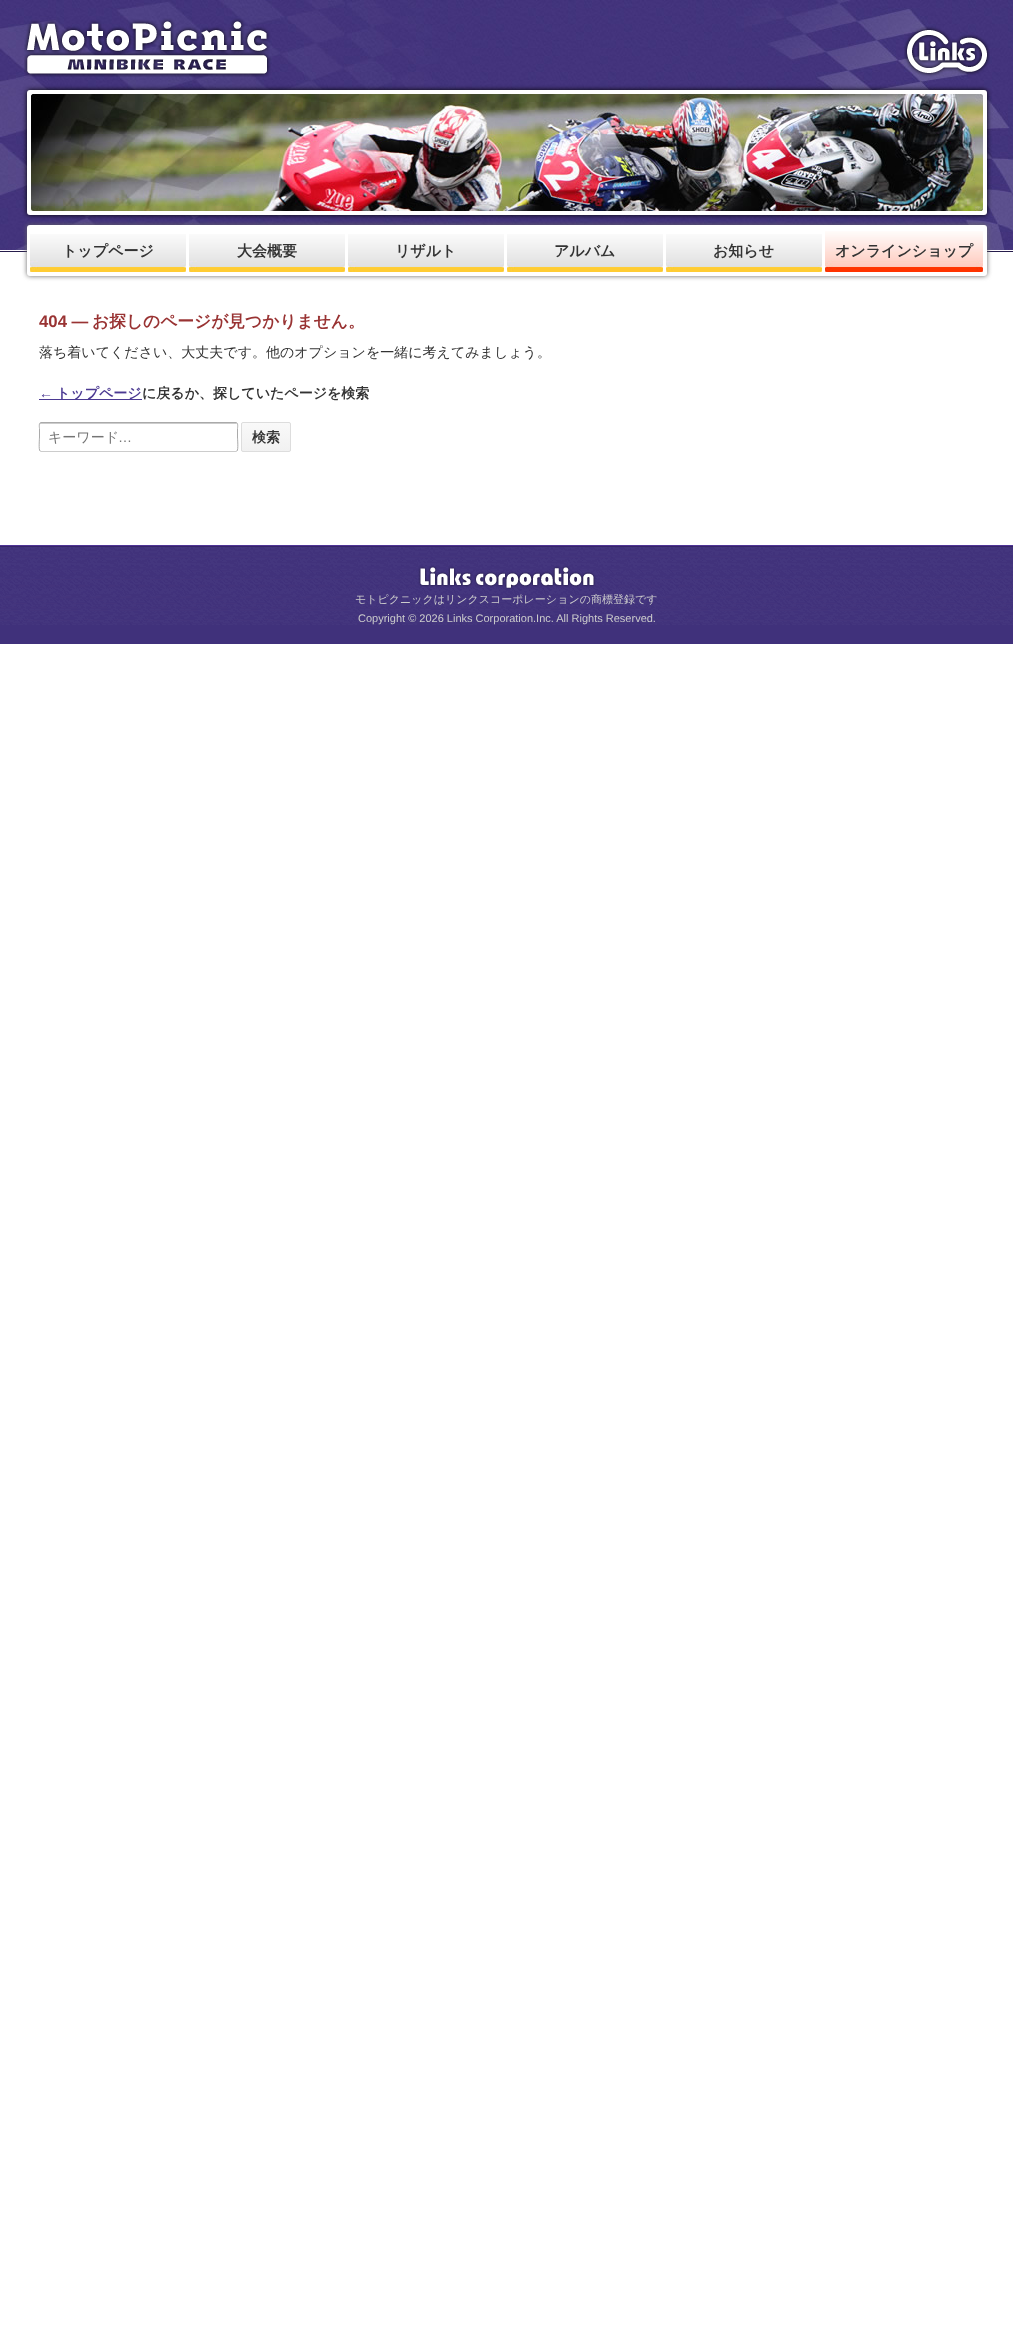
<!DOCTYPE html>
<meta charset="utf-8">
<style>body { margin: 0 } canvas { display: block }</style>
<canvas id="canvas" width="1013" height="2325"></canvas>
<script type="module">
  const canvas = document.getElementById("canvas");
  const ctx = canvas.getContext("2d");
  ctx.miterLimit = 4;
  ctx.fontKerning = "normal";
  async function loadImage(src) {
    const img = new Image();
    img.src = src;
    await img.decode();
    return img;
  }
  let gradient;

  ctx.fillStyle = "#ffffff";
  ctx.fillRect(0, 0, 1013, 2325);
  ctx.drawImage(await loadImage("img1.png"), 0, 250, 1013, 2);
  ctx.drawImage(await loadImage("img2.png"), 0, 0, 1013, 250);
  ctx.drawImage(await loadImage("img3.png"), 24, 18, 247, 59);
  ctx.drawImage(await loadImage("img4.png"), 904, 26, 86, 51);
  ctx.fillStyle = "#000000";
  ctx.filter = "blur(2.5px)";
  ctx.beginPath();
  ctx.roundRect(27, 90, 960, 125, 3);
  ctx.fill();
  ctx.filter = "none";
  ctx.fillStyle = "#ffffff";
  ctx.beginPath();
  ctx.roundRect(27, 90, 960, 125, 3);
  ctx.fill();
  ctx.drawImage(await loadImage("img5.png"), 31, 94, 952, 117);
  ctx.fillStyle = "#666666";
  ctx.filter = "blur(2.5px)";
  ctx.beginPath();
  ctx.roundRect(27, 225, 960, 51, 3);
  ctx.fill();
  ctx.filter = "none";
  ctx.fillStyle = "#ffffff";
  ctx.beginPath();
  ctx.roundRect(27, 225, 960, 51, 3);
  ctx.fill();
  ctx.drawImage(await loadImage("img6.png"), 30, 234, 156, 38);
  ctx.font = "bold 15px WenQuanYi Zen Hei";
  ctx.fillStyle = "#333333";
  ctx.fillText("トップページ", 62, 256);
  ctx.drawImage(await loadImage("img6.png"), 189, 234, 156, 38);
  ctx.fillText("大会概要", 237, 256);
  ctx.drawImage(await loadImage("img6.png"), 348, 234, 156, 38);
  ctx.fillText("リザルト", 395, 256);
  ctx.drawImage(await loadImage("img6.png"), 507, 234, 156, 38);
  ctx.fillText("アルバム", 554, 256);
  ctx.drawImage(await loadImage("img6.png"), 666, 234, 156, 38);
  ctx.fillText("お知らせ", 713, 256);
  ctx.drawImage(await loadImage("img7.png"), 825, 231, 158, 41);
  ctx.fillText("オンラインショップ", 835, 256);
  ctx.font = "bold 16.75px Liberation Sans";
  ctx.fillStyle = "#993333";
  ctx.fillText("404 —", 39, 327);
  ctx.font = "bold 16.75px WenQuanYi Zen Hei";
  ctx.fillText("お探しのページが見つかりません。", 92, 327);
  ctx.font = "500 14px WenQuanYi Zen Hei";
  ctx.fillStyle = "#333333";
  ctx.fillText("落ち着いてください、大丈夫です。他のオプションを一緒に考えてみましょう。", 39, 357);
  ctx.font = "bold 14px Liberation Sans";
  ctx.fillStyle = "#4b3992";
  ctx.fillText("←", 39, 398);
  ctx.fillRect(39, 399, 103, 1);
  ctx.font = "bold 14px WenQuanYi Zen Hei";
  ctx.fillText("トップページ", 56, 398);
  ctx.fillStyle = "#333333";
  ctx.fillText("に戻るか、探していたページを検索", 142, 398);
  ctx.fillStyle = "#cccccc";
  ctx.beginPath();
  ctx.moveTo(41, 424);
  ctx.lineTo(237, 424);
  ctx.lineTo(237, 425);
  ctx.bezierCurveTo(237, 424, 237, 423, 236, 423);
  ctx.lineTo(40, 423);
  ctx.lineTo(40, 425);
  ctx.bezierCurveTo(40, 424, 40, 424, 41, 424);
  ctx.closePath();
  ctx.fill();
  ctx.beginPath();
  ctx.moveTo(237, 451);
  ctx.lineTo(236, 451.5);
  ctx.lineTo(41, 451.5);
  ctx.lineTo(40, 451);
  ctx.strokeStyle = "#cccccc";
  ctx.stroke();
  ctx.beginPath();
  ctx.moveTo(40, 451);
  ctx.bezierCurveTo(38.5, 449.5, 39.5, 439, 39.5, 437);
  ctx.lineTo(39.5, 428.5);
  ctx.bezierCurveTo(39.5, 428, 38.5, 422.5, 41, 422.5);
  ctx.lineTo(236, 422.5);
  ctx.bezierCurveTo(238.5, 422.5, 237.5, 428, 237.5, 428.5);
  ctx.lineTo(237.5, 437);
  ctx.bezierCurveTo(237.5, 439, 238.5, 449.5, 237, 451);
  ctx.strokeStyle = "#aaaaaa";
  ctx.stroke();
  ctx.font = "500 14px WenQuanYi Zen Hei";
  ctx.fillStyle = "#757575";
  ctx.fillText("キーワード", 48, 442);
  ctx.font = "14px Liberation Sans";
  ctx.fillText("…", 118, 442);
  ctx.save();
  ctx.beginPath();
  ctx.roundRect(241, 422, 50, 30, 2);
  ctx.clip();
  gradient = ctx.createLinearGradient(266, 423, 266, 451);
  gradient.addColorStop(0, "#f9f9f9");
  gradient.addColorStop(1, "#f1f1f1");
  ctx.fillStyle = gradient;
  ctx.fillRect(241, 423, 50, 28);
  ctx.restore();
  ctx.beginPath();
  ctx.roundRect(241.5, 422.5, 49, 29, 1.5);
  ctx.strokeStyle = "#dddddd";
  ctx.stroke();
  ctx.font = "bold 14px WenQuanYi Zen Hei";
  ctx.fillStyle = "#333333";
  ctx.fillText("検索", 252, 442);
  ctx.fillStyle = "#40317b";
  ctx.fillRect(0, 625, 1013, 19);
  ctx.drawImage(await loadImage("img8.png"), 0, 545, 1013, 80);
  ctx.drawImage(await loadImage("img9.png"), 418, 566, 178, 24);
  ctx.font = "500 11px WenQuanYi Zen Hei";
  ctx.fillStyle = "#cccccc";
  ctx.fillText("モトピクニックはリンクスコーポレーションの商標登録です", 355, 603);
  ctx.font = "11px Liberation Sans";
  ctx.fillText("Copyright © 2026 Links Corporation.Inc. All Rights Reserved.", 358, 622);
</script>
